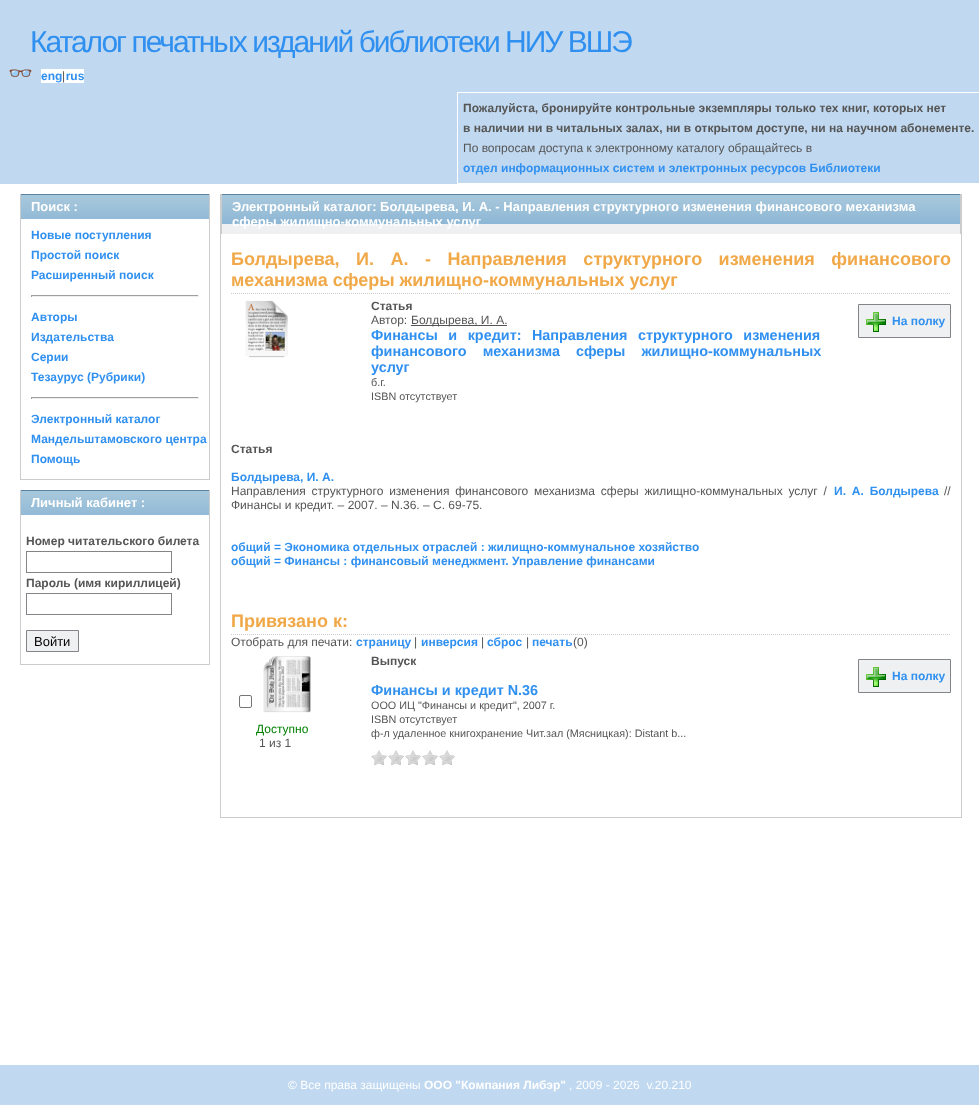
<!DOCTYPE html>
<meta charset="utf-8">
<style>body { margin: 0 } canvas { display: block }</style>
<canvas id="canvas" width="979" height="1105"></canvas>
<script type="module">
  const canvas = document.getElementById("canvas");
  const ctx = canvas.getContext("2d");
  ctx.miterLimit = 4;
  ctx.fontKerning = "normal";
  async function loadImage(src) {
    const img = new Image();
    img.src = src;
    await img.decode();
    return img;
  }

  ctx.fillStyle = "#ffffff";
  ctx.fillRect(0, 0, 979, 1105);
  ctx.fillStyle = "#c0d8f0";
  ctx.fillRect(0, 0, 979, 184);
  ctx.letterSpacing = "-2px";
  ctx.font = "30px Liberation Sans";
  ctx.fillStyle = "#3090f0";
  ctx.fillText("Каталог печатных изданий библиотеки НИУ ВШЭ", 30, 52);
  ctx.letterSpacing = "0px";
  ctx.font = "bold 20px Noto Color Emoji";
  ctx.fillText("👓", 8, 80);
  ctx.fillStyle = "#ffffff";
  ctx.fillRect(41, 69, 43, 14);
  ctx.font = "bold 12px Liberation Sans";
  ctx.fillStyle = "#3090f0";
  ctx.fillText("eng rus", 41, 80);
  ctx.font = "12px Liberation Sans";
  ctx.fillStyle = "#555555";
  ctx.fillText("|", 62, 80);
  ctx.strokeStyle = "#ffffff";
  ctx.strokeRect(457.5, 92.5, 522, 91);
  ctx.font = "bold 12px Liberation Sans";
  ctx.fillText("Пожалуйста, бронируйте контрольные экземпляры только тех книг, которых нет", 463, 112);
  ctx.fillText("в наличии ни в читальных залах, ни в открытом доступе, ни на научном абонементе.", 463, 132);
  ctx.font = "12px Liberation Sans";
  ctx.fillText("По вопросам доступа к электронному каталогу обращайтесь в", 463, 152);
  ctx.font = "bold 12px Liberation Sans";
  ctx.fillStyle = "#3090f0";
  ctx.fillText("отдел информационных систем и электронных ресурсов Библиотеки", 463, 172);
  ctx.drawImage(await loadImage("img1.png"), 21, 194, 188, 25);
  ctx.fillStyle = "#cccccc";
  ctx.fillRect(209, 194, 1, 286);
  ctx.fillRect(20, 194, 1, 25);
  ctx.font = "bold 13px Liberation Sans";
  ctx.fillStyle = "#ffffff";
  ctx.fillText("Поиск :", 31, 211);
  ctx.fillStyle = "#cccccc";
  ctx.fillRect(20, 479, 190, 1);
  ctx.fillRect(20, 219, 1, 261);
  ctx.font = "bold 12px Liberation Sans";
  ctx.fillStyle = "#3090f0";
  ctx.fillText("Новые поступления", 31, 239);
  ctx.fillText("Простой поиск", 31, 259);
  ctx.fillText("Расширенный поиск", 31, 279);
  ctx.fillStyle = "#9f9f9f";
  ctx.fillRect(31, 295, 168, 1);
  ctx.fillStyle = "#eeeeee";
  ctx.fillRect(198, 295, 1, 2);
  ctx.fillRect(31, 296, 168, 1);
  ctx.fillStyle = "#9f9f9f";
  ctx.fillRect(31, 295, 1, 2);
  ctx.fillStyle = "#3090f0";
  ctx.fillText("Авторы", 31, 321);
  ctx.fillText("Издательства", 31, 341);
  ctx.fillText("Серии", 31, 361);
  ctx.fillText("Тезаурус (Рубрики)", 31, 381);
  ctx.fillStyle = "#9f9f9f";
  ctx.fillRect(31, 397, 168, 1);
  ctx.fillStyle = "#eeeeee";
  ctx.fillRect(198, 397, 1, 2);
  ctx.fillRect(31, 398, 168, 1);
  ctx.fillStyle = "#9f9f9f";
  ctx.fillRect(31, 397, 1, 2);
  ctx.fillStyle = "#3090f0";
  ctx.fillText("Электронный каталог", 31, 423);
  ctx.fillText("Мандельштамовского центра", 31, 443);
  ctx.fillText("Помощь", 31, 463);
  ctx.drawImage(await loadImage("img1.png"), 21, 490, 188, 25);
  ctx.fillStyle = "#cccccc";
  ctx.fillRect(209, 490, 1, 175);
  ctx.fillRect(20, 490, 1, 25);
  ctx.font = "bold 13px Liberation Sans";
  ctx.fillStyle = "#ffffff";
  ctx.fillText("Личный кабинет :", 31, 507);
  ctx.fillStyle = "#cccccc";
  ctx.fillRect(20, 664, 190, 1);
  ctx.fillRect(20, 515, 1, 150);
  ctx.font = "bold 12px Liberation Sans";
  ctx.fillStyle = "#555555";
  ctx.fillText("Номер читательского билета", 26, 545);
  ctx.strokeStyle = "#848388";
  ctx.strokeRect(26.5, 551.5, 145, 21);
  ctx.fillText("Пароль (имя кириллицей)", 26, 587);
  ctx.strokeRect(26.5, 593.5, 145, 21);
  ctx.fillStyle = "#eef0f1";
  ctx.beginPath();
  ctx.rect(26.5, 630.5, 52, 21);
  ctx.fill();
  ctx.stroke();
  ctx.font = "13px Liberation Sans";
  ctx.fillStyle = "#000000";
  ctx.fillText("Войти", 34, 646);
  ctx.fillStyle = "#cccccc";
  ctx.fillRect(961, 194, 1, 624);
  ctx.fillRect(220, 817, 742, 1);
  ctx.fillRect(220, 194, 1, 624);
  ctx.fillStyle = "#eef0f1";
  ctx.fillRect(222, 224, 738, 10);
  ctx.drawImage(await loadImage("img2.png"), 222, 194, 738, 30);
  ctx.fillStyle = "#cccccc";
  ctx.fillRect(960, 194, 1, 40);
  ctx.fillRect(221, 194, 1, 40);
  ctx.font = "bold 13px Liberation Sans";
  ctx.fillStyle = "#ffffff";
  ctx.fillText("Электронный каталог: Болдырева, И. А. - Направления структурного изменения финансового механизма", 232, 211);
  ctx.fillText("сферы жилищно-коммунальных услуг", 232, 226);
  ctx.beginPath();
  ctx.moveTo(231, 293.5);
  ctx.lineTo(951, 293.5);
  ctx.strokeStyle = "#cccccc";
  ctx.setLineDash([1, 1]);
  ctx.stroke();
  ctx.wordSpacing = "11.5px";
  ctx.font = "bold 18px Liberation Sans";
  ctx.fillStyle = "#f0a848";
  ctx.fillText("Болдырева, И. А. - Направления структурного изменения финансового", 231, 265);
  ctx.wordSpacing = "0px";
  ctx.fillText("механизма сферы жилищно-коммунальных услуг", 231, 286);
  ctx.drawImage(await loadImage("img3.png"), 245, 300, 43, 58);
  ctx.font = "bold 12px Liberation Sans";
  ctx.fillStyle = "#555555";
  ctx.fillText("Статья", 371, 310);
  ctx.font = "12px Liberation Sans";
  ctx.fillText("Автор:", 371, 324);
  ctx.fillRect(411, 325, 96, 1);
  ctx.fillText("Болдырева, И. А.", 411, 324);
  ctx.wordSpacing = "6.5px";
  ctx.font = "bold 14.4px Liberation Sans";
  ctx.fillStyle = "#3090f0";
  ctx.fillText("Финансы и кредит: Направления структурного изменения", 371, 340);
  ctx.wordSpacing = "12px";
  ctx.fillText("финансового механизма сферы жилищно-коммунальных", 371, 356);
  ctx.wordSpacing = "0px";
  ctx.fillText("услуг", 371, 372);
  ctx.font = "10.8px Liberation Sans";
  ctx.fillStyle = "#555555";
  ctx.fillText("б.г.", 371, 386);
  ctx.fillText("ISBN отсутствует", 371, 400);
  ctx.fillStyle = "#eef0f1";
  ctx.beginPath();
  ctx.rect(858.5, 304.5, 92, 33);
  ctx.fill();
  ctx.strokeStyle = "#848388";
  ctx.setLineDash([]);
  ctx.stroke();
  ctx.drawImage(await loadImage("img4.png"), 866, 312, 20, 20);
  ctx.font = "bold 12px Liberation Sans";
  ctx.fillStyle = "#3090f0";
  ctx.fillText("На полку", 892, 325);
  ctx.fillStyle = "#555555";
  ctx.fillText("Статья", 231, 453);
  ctx.fillStyle = "#3090f0";
  ctx.fillText("Болдырева, И. А.", 231, 481);
  ctx.wordSpacing = "2.5px";
  ctx.font = "12px Liberation Sans";
  ctx.fillStyle = "#555555";
  ctx.fillText("Направления структурного изменения финансового механизма сферы жилищно-коммунальных услуг /", 231, 495);
  ctx.font = "bold 12px Liberation Sans";
  ctx.fillStyle = "#3090f0";
  ctx.fillText("И. А. Болдырева", 834, 495);
  ctx.wordSpacing = "0px";
  ctx.font = "12px Liberation Sans";
  ctx.fillStyle = "#555555";
  ctx.fillText("//", 944, 495);
  ctx.fillText("Финансы и кредит. – 2007. – N.36. – С. 69-75.", 231, 509);
  ctx.font = "bold 12px Liberation Sans";
  ctx.fillStyle = "#3090f0";
  ctx.fillText("общий = Экономика отдельных отраслей : жилищно-коммунальное хозяйство", 231, 551);
  ctx.fillText("общий = Финансы : финансовый менеджмент. Управление финансами", 231, 565);
  ctx.beginPath();
  ctx.moveTo(231, 634.5);
  ctx.lineTo(951, 634.5);
  ctx.strokeStyle = "#cccccc";
  ctx.setLineDash([1, 1]);
  ctx.stroke();
  ctx.font = "bold 18px Liberation Sans";
  ctx.fillStyle = "#f0a848";
  ctx.fillText("Привязано к:", 231, 627);
  ctx.font = "12px Liberation Sans";
  ctx.fillStyle = "#555555";
  ctx.fillText("Отобрать для печати:", 231, 646);
  ctx.font = "bold 12px Liberation Sans";
  ctx.fillStyle = "#3090f0";
  ctx.fillText("страницу", 356, 646);
  ctx.font = "12px Liberation Sans";
  ctx.fillStyle = "#555555";
  ctx.fillText("|", 414, 646);
  ctx.font = "bold 12px Liberation Sans";
  ctx.fillStyle = "#3090f0";
  ctx.fillText("инверсия", 421, 646);
  ctx.font = "12px Liberation Sans";
  ctx.fillStyle = "#555555";
  ctx.fillText("|", 481, 646);
  ctx.font = "bold 12px Liberation Sans";
  ctx.fillStyle = "#3090f0";
  ctx.fillText("сброс", 487, 646);
  ctx.font = "12px Liberation Sans";
  ctx.fillStyle = "#555555";
  ctx.fillText("|", 526, 646);
  ctx.font = "bold 12px Liberation Sans";
  ctx.fillStyle = "#3090f0";
  ctx.fillText("печать", 532, 646);
  ctx.font = "12px Liberation Sans";
  ctx.fillStyle = "#555555";
  ctx.fillText("(0)", 573, 646);
  ctx.font = "bold 12px Liberation Sans";
  ctx.fillText("Выпуск", 371, 665);
  ctx.font = "bold 14.4px Liberation Sans";
  ctx.fillStyle = "#3090f0";
  ctx.fillText("Финансы и кредит N.36", 371, 695);
  ctx.font = "10.8px Liberation Sans";
  ctx.fillStyle = "#555555";
  ctx.fillText("ООО ИЦ \"Финансы и кредит\", 2007 г.", 371, 709);
  ctx.fillText("ISBN отсутствует", 371, 723);
  ctx.fillText("ф-л удаленное книгохранение Чит.зал (Мясницкая): Distant b...", 371, 737);
  ctx.drawImage(await loadImage("img5.png"), 371, 750, 16, 15);
  ctx.drawImage(await loadImage("img5.png"), 388, 750, 16, 15);
  ctx.drawImage(await loadImage("img5.png"), 405, 750, 16, 15);
  ctx.drawImage(await loadImage("img5.png"), 422, 750, 16, 15);
  ctx.drawImage(await loadImage("img5.png"), 439, 750, 16, 15);
  ctx.fillStyle = "#eef0f1";
  ctx.beginPath();
  ctx.rect(858.5, 659.5, 92, 33);
  ctx.fill();
  ctx.strokeStyle = "#848388";
  ctx.setLineDash([]);
  ctx.stroke();
  ctx.drawImage(await loadImage("img4.png"), 866, 667, 20, 20);
  ctx.font = "bold 12px Liberation Sans";
  ctx.fillStyle = "#3090f0";
  ctx.fillText("На полку", 892, 680);
  ctx.beginPath();
  ctx.roundRect(239.5, 695.5, 12, 12, 1.5);
  ctx.strokeStyle = "#767676";
  ctx.stroke();
  ctx.drawImage(await loadImage("img6.png"), 263, 656, 48, 57);
  ctx.font = "12px Liberation Sans";
  ctx.fillStyle = "#008000";
  ctx.fillText("Доступно", 256, 733);
  ctx.fillStyle = "#555555";
  ctx.fillText("1 из 1", 259, 747);
  ctx.fillStyle = "#c0d8f0";
  ctx.fillRect(0, 1065, 979, 40);
  ctx.fillStyle = "#ffffff";
  ctx.fillText("© Все права защищены", 288, 1089);
  ctx.font = "bold 12px Liberation Sans";
  ctx.fillText("ООО \"Компания Либэр\"", 424, 1089);
  ctx.font = "12px Liberation Sans";
  ctx.fillText(", 2009 - 2026  v.20.210", 569, 1089);
</script>
